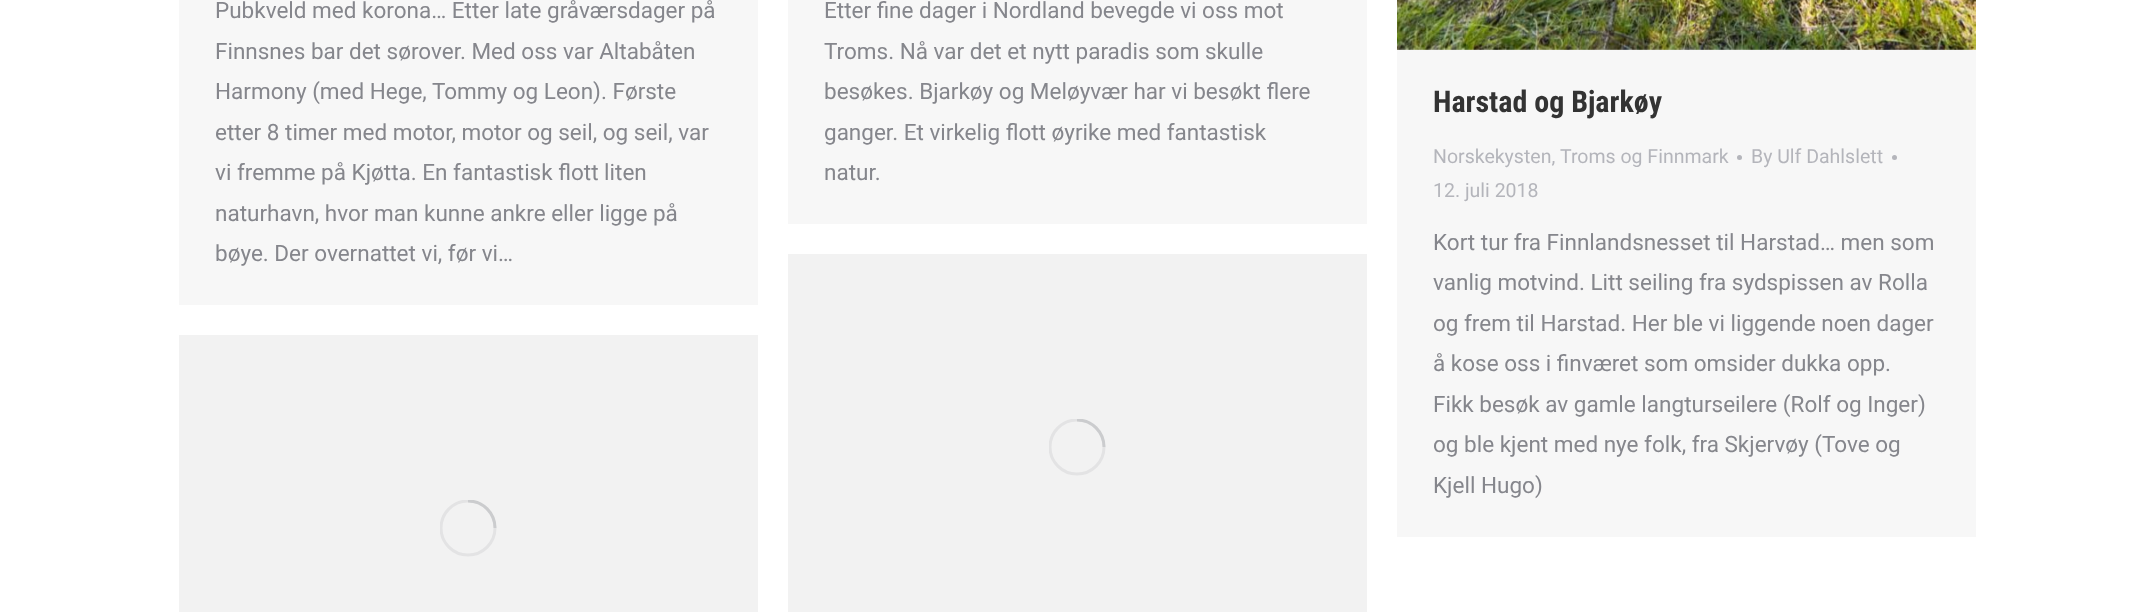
<!DOCTYPE html>
<meta charset="utf-8">
<style>body { margin: 0 } canvas { display: block }</style>
<canvas id="canvas" width="2155" height="612"></canvas>
<script type="module">
  const canvas = document.getElementById("canvas");
  const ctx = canvas.getContext("2d");
  ctx.miterLimit = 4;
  ctx.fontKerning = "normal";
  async function loadImage(src) {
    const img = new Image();
    img.src = src;
    await img.decode();
    return img;
  }

  ctx.fillStyle = "#ffffff";
  ctx.fillRect(0, 0, 2155, 612);
  ctx.fillStyle = "#f7f7f7";
  ctx.fillRect(179, 0, 579, 305);
  ctx.font = "22.5px Roboto";
  ctx.fillStyle = "#85868c";
  ctx.fillText("Pubkveld med korona… Etter late gråværsdager på", 215, 18);
  ctx.fillText("Finnsnes bar det sørover. Med oss var Altabåten", 215, 59);
  ctx.fillText("Harmony (med Hege, Tommy og Leon). Første", 215, 99);
  ctx.fillText("etter 8 timer med motor, motor og seil, og seil, var", 215, 140);
  ctx.fillText("vi fremme på Kjøtta. En fantastisk flott liten", 215, 180);
  ctx.fillText("naturhavn, hvor man kunne ankre eller ligge på", 215, 221);
  ctx.fillText("bøye. Der overnattet vi, før vi…", 215, 261);
  ctx.fillStyle = "#f7f7f7";
  ctx.fillRect(788, 0, 579, 224);
  ctx.fillStyle = "#85868c";
  ctx.fillText("Etter fine dager i Nordland bevegde vi oss mot", 824, 18);
  ctx.fillText("Troms. Nå var det et nytt paradis som skulle", 824, 59);
  ctx.fillText("besøkes. Bjarkøy og Meløyvær har vi besøkt flere", 824, 99);
  ctx.fillText("ganger. Et virkelig flott øyrike med fantastisk", 824, 140);
  ctx.fillText("natur.", 824, 180);
  ctx.fillStyle = "#f7f7f7";
  ctx.fillRect(1397, 48, 579, 489);
  ctx.drawImage(await loadImage("img1.png"), 1397, 0, 579, 50);
  ctx.font = "bold 30px Roboto Condensed";
  ctx.fillStyle = "#333333";
  ctx.fillText("Harstad og Bjarkøy", 1433, 112);
  ctx.font = "19.5px Roboto";
  ctx.fillStyle = "#b4b5bb";
  ctx.fillText("Norskekysten,", 1433, 163);
  ctx.fillText("Troms og Finnmark", 1560, 163);
  ctx.beginPath();
  ctx.arc(1739.5, 157.5, 2.5, 0, Math.PI * 2);
  ctx.fill();
  ctx.fillText("By Ulf Dahlslett", 1751, 163);
  ctx.beginPath();
  ctx.arc(1894.5, 157.5, 2.5, 0, Math.PI * 2);
  ctx.fill();
  ctx.fillText("12. juli 2018", 1433, 197);
  ctx.font = "22.5px Roboto";
  ctx.fillStyle = "#85868c";
  ctx.fillText("Kort tur fra Finnlandsnesset til Harstad… men som", 1433, 250);
  ctx.fillText("vanlig motvind. Litt seiling fra sydspissen av Rolla", 1433, 290);
  ctx.fillText("og frem til Harstad. Her ble vi liggende noen dager", 1433, 331);
  ctx.fillText("å kose oss i finværet som omsider dukka opp.", 1433, 371);
  ctx.fillText("Fikk besøk av gamle langturseilere (Rolf og Inger)", 1433, 412);
  ctx.fillText("og ble kjent med nye folk, fra Skjervøy (Tove og", 1433, 452);
  ctx.fillText("Kjell Hugo)", 1433, 493);
  ctx.fillStyle = "#f2f2f2";
  ctx.fillRect(179, 335, 579, 277);
  ctx.save();
  ctx.beginPath();
  ctx.rect(440, 500, 57, 57);
  ctx.clip();
  ctx.beginPath();
  ctx.arc(468, 528, 27, 0, Math.PI * 2);
  ctx.strokeStyle = "#e3e3e4";
  ctx.lineWidth = 3;
  ctx.stroke();
  ctx.beginPath();
  ctx.moveTo(495, 528);
  ctx.bezierCurveTo(495, 513, 483, 501, 468, 501);
  ctx.strokeStyle = "rgba(133, 134, 140, 0.25)";
  ctx.stroke();
  ctx.restore();
  ctx.fillRect(788, 254, 579, 358);
  ctx.save();
  ctx.beginPath();
  ctx.rect(1049, 419, 57, 57);
  ctx.clip();
  ctx.beginPath();
  ctx.arc(1077, 447, 27, 0, Math.PI * 2);
  ctx.strokeStyle = "#e3e3e4";
  ctx.lineWidth = 3;
  ctx.stroke();
  ctx.beginPath();
  ctx.moveTo(1104, 447);
  ctx.bezierCurveTo(1104, 432, 1092, 420, 1077, 420);
  ctx.strokeStyle = "rgba(133, 134, 140, 0.25)";
  ctx.stroke();
  ctx.restore();
</script>
